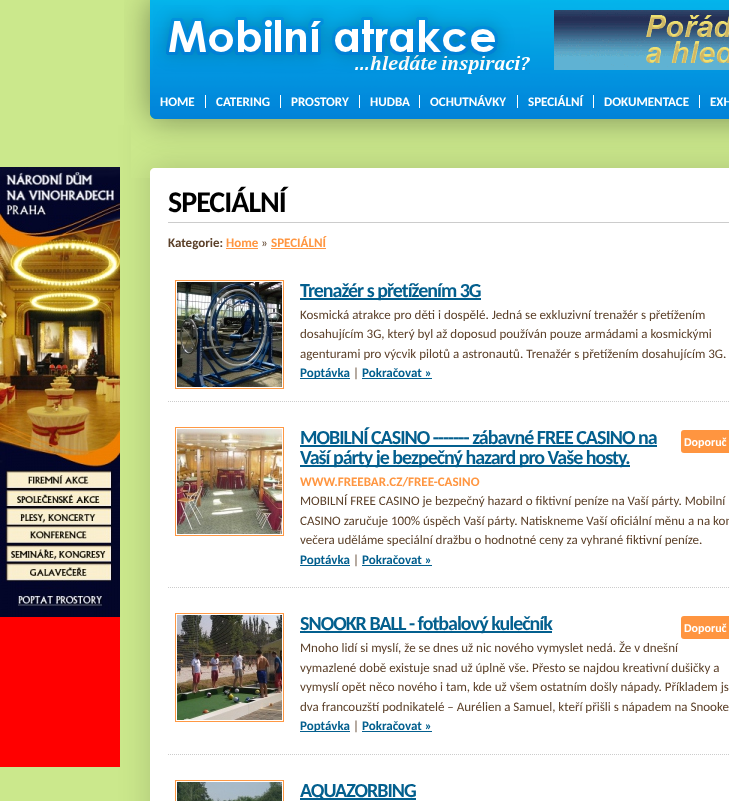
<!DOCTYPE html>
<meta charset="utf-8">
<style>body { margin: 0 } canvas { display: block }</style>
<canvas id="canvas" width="729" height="801"></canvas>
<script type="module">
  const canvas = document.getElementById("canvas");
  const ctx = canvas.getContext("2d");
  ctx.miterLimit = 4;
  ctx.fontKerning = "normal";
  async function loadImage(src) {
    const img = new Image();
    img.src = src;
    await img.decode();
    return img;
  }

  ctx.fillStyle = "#cbe88c";
  ctx.fillRect(0, 0, 729, 801);
  ctx.drawImage(await loadImage("img5.png"), 118, 125, 611, 676);
  ctx.fillStyle = "#ff0000";
  ctx.fillRect(0, 617, 120, 150);
  ctx.drawImage(await loadImage("img1.png"), 0, 167, 120, 450);
  ctx.drawImage(await loadImage("img2.png"), 124, 0, 605, 125);
  ctx.drawImage(await loadImage("img3.png"), 153, 5, 377, 69);
  ctx.drawImage(await loadImage("img4.png"), 554, 10, 175, 60);
  ctx.fillStyle = "#ffffff";
  ctx.fillRect(205, 95, 1, 13);
  ctx.font = "bold 13px Carlito";
  ctx.fillText("HOME", 160, 106);
  ctx.fillRect(280, 95, 1, 13);
  ctx.fillText("CATERING", 216, 106);
  ctx.fillRect(359, 95, 1, 13);
  ctx.fillText("PROSTORY", 291, 106);
  ctx.fillRect(419, 95, 1, 13);
  ctx.fillText("HUDBA", 370, 106);
  ctx.fillRect(517, 95, 1, 13);
  ctx.fillText("OCHUTNÁVKY", 430, 106);
  ctx.fillRect(593, 95, 1, 13);
  ctx.fillText("SPECIÁLNÍ", 528, 106);
  ctx.fillRect(699, 95, 1, 13);
  ctx.fillText("DOKUMENTACE", 604, 106);
  ctx.fillText("EXH", 710, 106);
  ctx.drawImage(await loadImage("img6.png"), 131, 125, 598, 53);
  ctx.fillStyle = "#cccccc";
  ctx.fillRect(168, 222, 561, 1);
  ctx.letterSpacing = "-1px";
  ctx.font = "bold 30px Carlito";
  ctx.fillStyle = "#000000";
  ctx.fillText("SPECIÁLNÍ", 168, 212);
  ctx.letterSpacing = "0px";
  ctx.font = "bold 13px Carlito";
  ctx.fillStyle = "#5c412a";
  ctx.fillText("Kategorie:", 168, 247);
  ctx.fillStyle = "#ff9641";
  ctx.fillText("Home", 226, 247);
  ctx.fillRect(226, 248, 32, 1);
  ctx.font = "13px Carlito";
  ctx.fillStyle = "#5c412a";
  ctx.fillText("»", 261, 247);
  ctx.fillStyle = "#ff9641";
  ctx.fillRect(271, 248, 55, 1);
  ctx.font = "bold 13px Carlito";
  ctx.fillText("SPECIÁLNÍ", 271, 247);
  ctx.beginPath();
  ctx.moveTo(168, 401.5);
  ctx.lineTo(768, 401.5);
  ctx.strokeStyle = "#cccccc";
  ctx.setLineDash([1, 1]);
  ctx.stroke();
  ctx.strokeStyle = "#ff9843";
  ctx.setLineDash([]);
  ctx.strokeRect(175.5, 280.5, 108, 108);
  ctx.drawImage(await loadImage("img7.png"), 177, 282, 105, 105);
  ctx.fillStyle = "#035f8e";
  ctx.fillRect(300, 298, 181, 2);
  ctx.letterSpacing = "-1px";
  ctx.font = "bold 20px Carlito";
  ctx.fillText("Trenažér s přetížením 3G", 300, 297);
  ctx.letterSpacing = "0px";
  ctx.font = "13px Carlito";
  ctx.fillStyle = "#5c412a";
  ctx.fillText("Kosmická atrakce pro děti i dospělé. Jedná se exkluzivní trenažér s přetížením", 300, 319);
  ctx.fillText("dosahujícím 3G, který byl až doposud používán pouze armádami a kosmickými", 300, 338);
  ctx.fillText("agenturami pro výcvik pilotů a astronautů. Trenažér s přetížením dosahujícím 3G.", 300, 358);
  ctx.fillStyle = "#035f8e";
  ctx.fillRect(300, 378, 50, 1);
  ctx.font = "bold 13px Carlito";
  ctx.fillText("Poptávka", 300, 377);
  ctx.font = "13px Carlito";
  ctx.fillStyle = "#5c412a";
  ctx.fillText("|", 353, 377);
  ctx.font = "bold 13px Carlito";
  ctx.fillStyle = "#035f8e";
  ctx.fillText("Pokračovat »", 362, 377);
  ctx.fillRect(362, 378, 70, 1);
  ctx.beginPath();
  ctx.moveTo(168, 587.5);
  ctx.lineTo(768, 587.5);
  ctx.strokeStyle = "#cccccc";
  ctx.setLineDash([1, 1]);
  ctx.stroke();
  ctx.strokeStyle = "#ff9843";
  ctx.setLineDash([]);
  ctx.strokeRect(175.5, 427.5, 108, 108);
  ctx.drawImage(await loadImage("img8.png"), 177, 429, 105, 105);
  ctx.letterSpacing = "-1px";
  ctx.font = "bold 20px Carlito";
  ctx.fillText("MOBILNÍ CASINO ------- zábavné FREE CASINO na", 300, 444);
  ctx.fillRect(300, 445, 357, 2);
  ctx.fillRect(300, 465, 330, 2);
  ctx.fillText("Vaší párty je bezpečný hazard pro Vaše hosty.", 300, 464);
  ctx.fillStyle = "#ff9540";
  ctx.beginPath();
  ctx.roundRect(681, 430, 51, 23, 3);
  ctx.fill();
  ctx.letterSpacing = "0px";
  ctx.font = "bold 12px Carlito";
  ctx.fillStyle = "#ffffff";
  ctx.fillText("Doporuč", 684, 446);
  ctx.font = "bold 13px Carlito";
  ctx.fillStyle = "#ff9641";
  ctx.fillText("WWW.FREEBAR.CZ/FREE-CASINO", 300, 486);
  ctx.font = "13px Carlito";
  ctx.fillStyle = "#5c412a";
  ctx.fillText("MOBILNÍ FREE CASINO je bezpečný hazard o fiktivní peníze na Vaší párty. Mobilní", 300, 505);
  ctx.fillText("CASINO zaručuje 100% úspěch Vaší párty. Natiskneme Vaší oficiální měnu a na kon", 300, 525);
  ctx.fillText("večera uděláme speciální dražbu o hodnotné ceny za vyhrané fiktivní peníze.", 300, 544);
  ctx.fillStyle = "#035f8e";
  ctx.fillRect(300, 565, 50, 1);
  ctx.font = "bold 13px Carlito";
  ctx.fillText("Poptávka", 300, 564);
  ctx.font = "13px Carlito";
  ctx.fillStyle = "#5c412a";
  ctx.fillText("|", 353, 564);
  ctx.font = "bold 13px Carlito";
  ctx.fillStyle = "#035f8e";
  ctx.fillText("Pokračovat »", 362, 564);
  ctx.fillRect(362, 565, 70, 1);
  ctx.beginPath();
  ctx.moveTo(168, 754.5);
  ctx.lineTo(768, 754.5);
  ctx.strokeStyle = "#cccccc";
  ctx.setLineDash([1, 1]);
  ctx.stroke();
  ctx.strokeStyle = "#ff9843";
  ctx.setLineDash([]);
  ctx.strokeRect(175.5, 613.5, 108, 108);
  ctx.drawImage(await loadImage("img9.png"), 177, 615, 105, 105);
  ctx.fillRect(300, 631, 252, 2);
  ctx.letterSpacing = "-1px";
  ctx.font = "bold 20px Carlito";
  ctx.fillText("SNOOKR BALL - fotbalový kulečník", 300, 630);
  ctx.fillStyle = "#ff9540";
  ctx.beginPath();
  ctx.roundRect(681, 616, 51, 23, 3);
  ctx.fill();
  ctx.letterSpacing = "0px";
  ctx.font = "bold 12px Carlito";
  ctx.fillStyle = "#ffffff";
  ctx.fillText("Doporuč", 684, 632);
  ctx.font = "13px Carlito";
  ctx.fillStyle = "#5c412a";
  ctx.fillText("Mnoho lidí si myslí, že se dnes už nic nového vymyslet nedá. Že v dnešní", 300, 652);
  ctx.fillText("vymazlené době existuje snad už úplně vše. Přesto se najdou kreativní dušičky a", 300, 672);
  ctx.fillText("vymyslí opět něco nového i tam, kde už všem ostatním došly nápady. Příkladem js", 300, 691);
  ctx.fillText("dva francouzští podnikatelé – Aurélien a Samuel, kteří přišli s nápadem na Snooke", 300, 711);
  ctx.fillStyle = "#035f8e";
  ctx.fillRect(300, 731, 50, 1);
  ctx.font = "bold 13px Carlito";
  ctx.fillText("Poptávka", 300, 730);
  ctx.font = "13px Carlito";
  ctx.fillStyle = "#5c412a";
  ctx.fillText("|", 353, 730);
  ctx.font = "bold 13px Carlito";
  ctx.fillStyle = "#035f8e";
  ctx.fillText("Pokračovat »", 362, 730);
  ctx.fillRect(362, 731, 70, 1);
  ctx.strokeRect(175.5, 780.5, 108, 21);
  ctx.drawImage(await loadImage("img10.png"), 177, 782, 105, 19);
  ctx.fillRect(300, 798, 116, 2);
  ctx.letterSpacing = "-1px";
  ctx.font = "bold 20px Carlito";
  ctx.fillText("AQUAZORBING", 300, 797);
</script>
